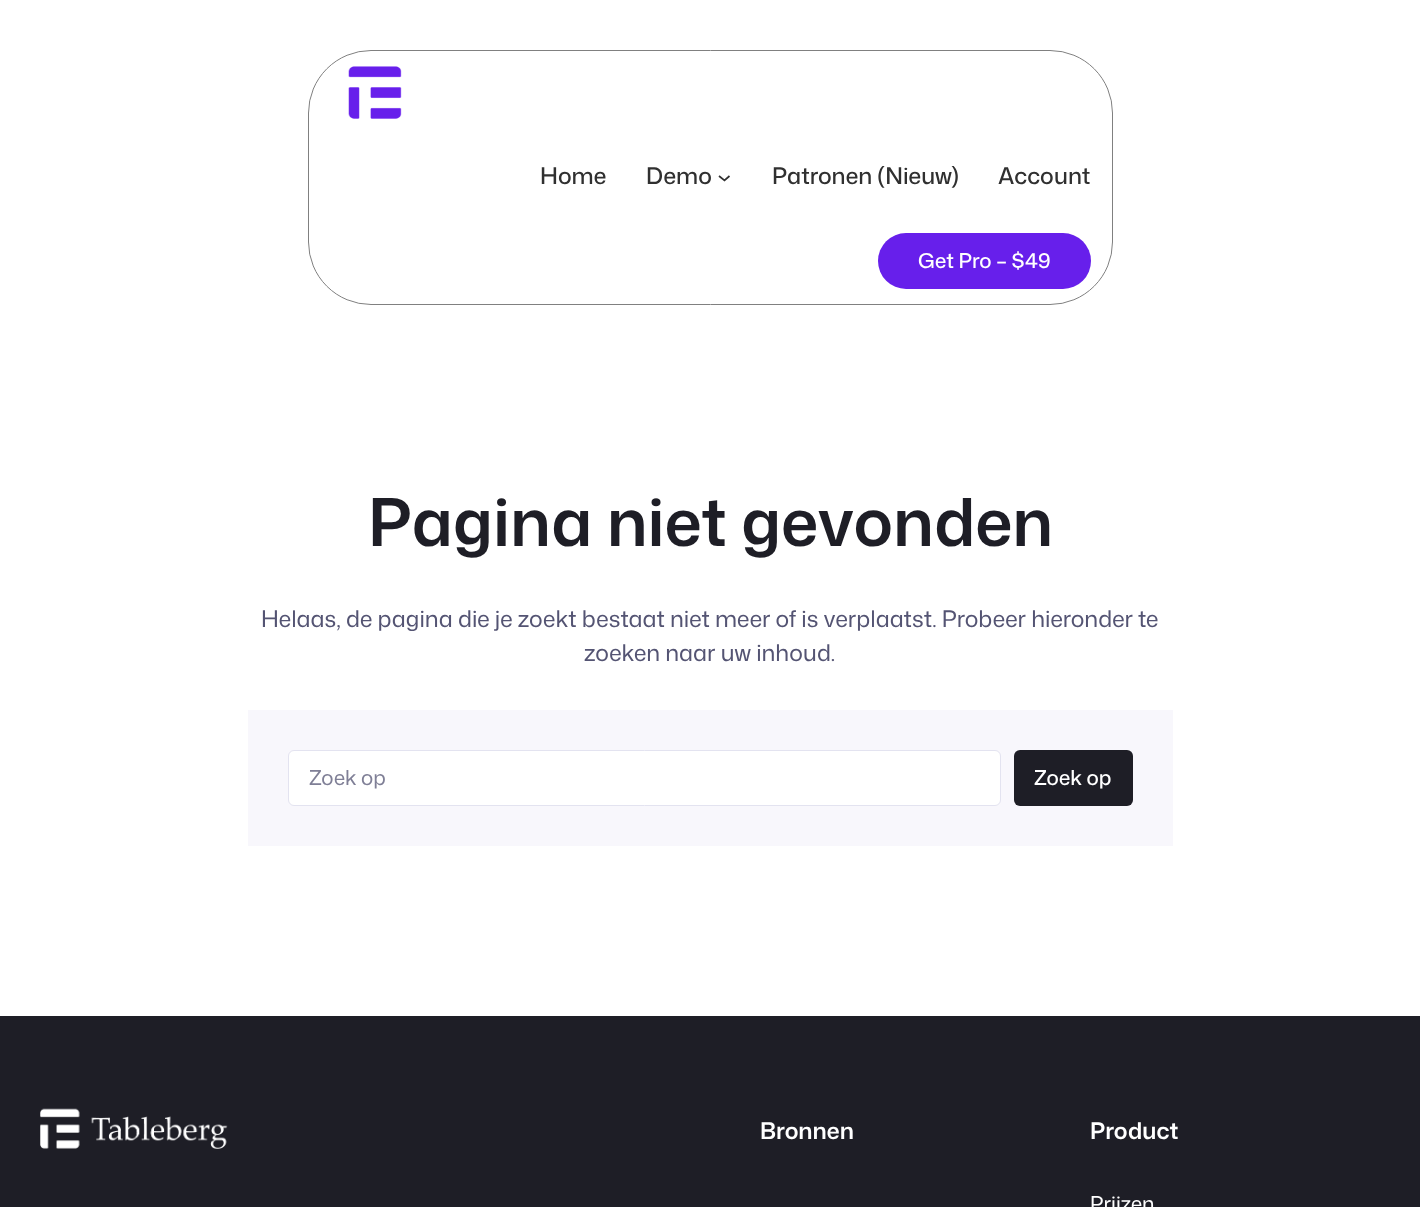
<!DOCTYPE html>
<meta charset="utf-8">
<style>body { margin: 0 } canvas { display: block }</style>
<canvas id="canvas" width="1420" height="1207"></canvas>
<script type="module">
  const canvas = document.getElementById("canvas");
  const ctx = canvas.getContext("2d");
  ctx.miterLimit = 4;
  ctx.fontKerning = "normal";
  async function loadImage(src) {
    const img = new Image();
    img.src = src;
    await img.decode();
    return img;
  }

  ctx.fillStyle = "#ffffff";
  ctx.fillRect(0, 0, 1420, 1207);
  ctx.beginPath();
  ctx.roundRect(308.5, 50.5, 804, 254, 62.5);
  ctx.strokeStyle = "#808080";
  ctx.stroke();
  ctx.drawImage(await loadImage("img1.png"), 348, 66, 54, 53);
  ctx.font = "500 22.85px Mona Sans";
  ctx.fillStyle = "#303030";
  ctx.fillText("Home", 540, 184);
  ctx.fillText("Demo", 646, 184);
  ctx.beginPath();
  ctx.moveTo(719, 176);
  ctx.lineTo(724.5, 180.5);
  ctx.lineTo(729.5, 176);
  ctx.strokeStyle = "#303030";
  ctx.lineWidth = 1.7;
  ctx.stroke();
  ctx.fillText("Patronen (Nieuw)", 772, 184);
  ctx.fillText("Account", 998, 184);
  ctx.fillStyle = "#671feb";
  ctx.beginPath();
  ctx.roundRect(878, 233, 213, 56, 28);
  ctx.fill();
  ctx.font = "500 20.5px Mona Sans";
  ctx.fillStyle = "#ffffff";
  ctx.fillText("Get Pro – $49", 918, 268);
  ctx.font = "600 65.75px Mona Sans";
  ctx.fillStyle = "#1e1e26";
  ctx.fillText("Pagina niet gevonden", 368, 546);
  ctx.font = "22.85px Mona Sans";
  ctx.fillStyle = "#545473";
  ctx.fillText("Helaas, de pagina die je zoekt bestaat niet meer of is verplaatst. Probeer hieronder te", 261, 627);
  ctx.fillText("zoeken naar uw inhoud.", 584, 661);
  ctx.fillStyle = "#f8f7fc";
  ctx.fillRect(248, 710, 925, 136);
  ctx.fillStyle = "#ffffff";
  ctx.beginPath();
  ctx.roundRect(288.5, 750.5, 712, 55, 5.5);
  ctx.fill();
  ctx.strokeStyle = "#e3e3f0";
  ctx.lineWidth = 1;
  ctx.stroke();
  ctx.font = "20.5px Mona Sans";
  ctx.fillStyle = "#7f7f96";
  ctx.fillText("Zoek op", 309, 785);
  ctx.fillStyle = "#1e1e26";
  ctx.beginPath();
  ctx.roundRect(1014, 750, 119, 56, 6);
  ctx.fill();
  ctx.font = "500 20.5px Mona Sans";
  ctx.fillStyle = "#ffffff";
  ctx.fillText("Zoek op", 1034, 785);
  ctx.fillStyle = "#1e1e26";
  ctx.fillRect(0, 1016, 1420, 191);
  ctx.drawImage(await loadImage("img2.png"), 40, 1108, 188, 41);
  ctx.font = "600 22.85px Mona Sans";
  ctx.fillStyle = "#ffffff";
  ctx.fillText("Bronnen", 760, 1139);
  ctx.fillText("Product", 1090, 1139);
  ctx.font = "20.5px Mona Sans";
  ctx.fillText("Prijzen", 1090, 1211);
</script>
